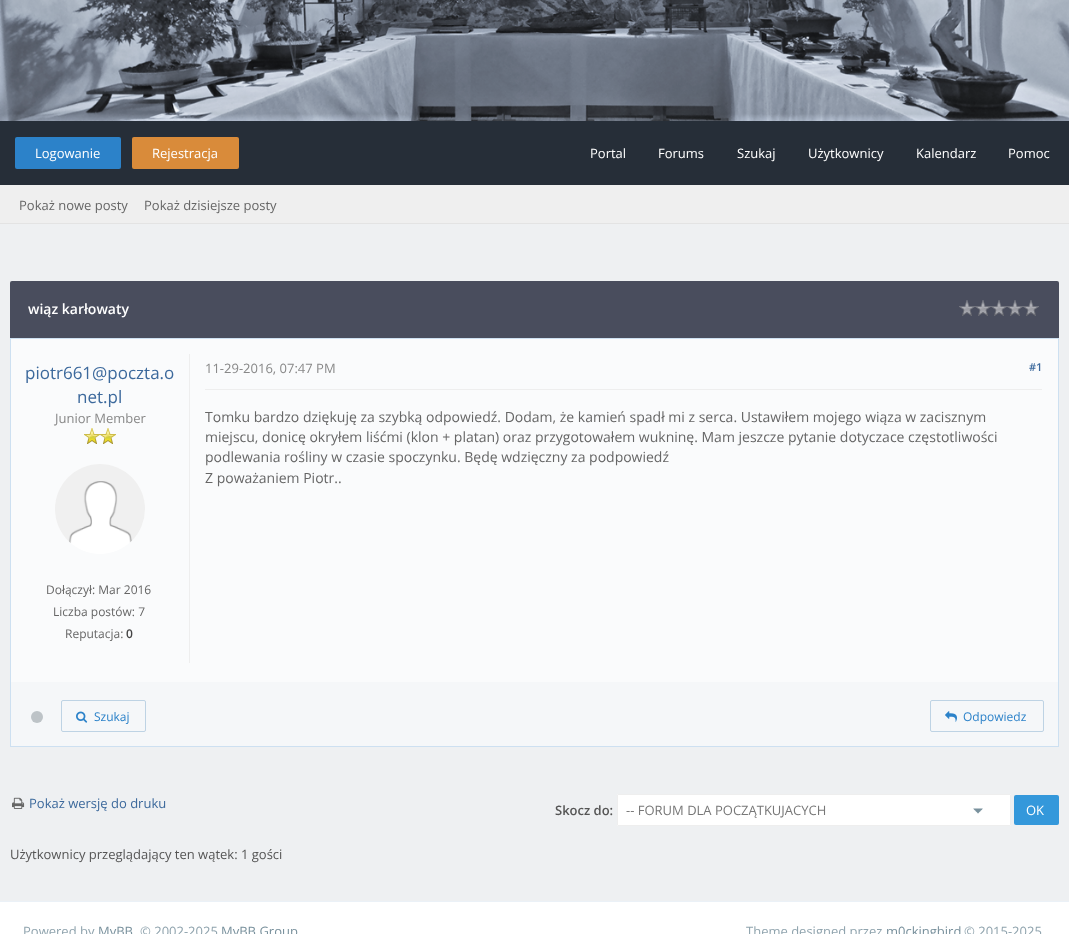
<!DOCTYPE html>
<meta charset="utf-8">
<style>body { margin: 0 } canvas { display: block }</style>
<canvas id="canvas" width="1069" height="934"></canvas>
<script type="module">
  const canvas = document.getElementById("canvas");
  const ctx = canvas.getContext("2d");
  ctx.miterLimit = 4;
  ctx.fontKerning = "normal";
  async function loadImage(src) {
    const img = new Image();
    img.src = src;
    await img.decode();
    return img;
  }

  ctx.fillStyle = "#ffffff";
  ctx.fillRect(0, 0, 1069, 934);
  ctx.drawImage(await loadImage("img1.png"), 0, 0, 1069, 121);
  ctx.fillStyle = "#262e38";
  ctx.fillRect(0, 121, 1069, 64);
  ctx.fillStyle = "#2c82c9";
  ctx.beginPath();
  ctx.roundRect(15, 137, 106, 32, 2);
  ctx.fill();
  ctx.font = "13px Open Sans";
  ctx.fillStyle = "#ffffff";
  ctx.fillText("Logowanie", 35, 158);
  ctx.fillStyle = "#d98b3a";
  ctx.beginPath();
  ctx.roundRect(132, 137, 107, 32, 2);
  ctx.fill();
  ctx.fillStyle = "#ffffff";
  ctx.fillText("Rejestracja", 152, 158);
  ctx.fillText("Portal", 590, 158);
  ctx.fillText("Forums", 658, 158);
  ctx.fillText("Szukaj", 737, 158);
  ctx.fillText("Użytkownicy", 808, 158);
  ctx.fillText("Kalendarz", 916, 158);
  ctx.fillText("Pomoc", 1008, 158);
  ctx.fillStyle = "#efefef";
  ctx.fillRect(0, 185, 1069, 38);
  ctx.fillStyle = "#e3e3e3";
  ctx.fillRect(0, 223, 1069, 1);
  ctx.fillStyle = "#666666";
  ctx.fillText("Pokaż nowe posty", 19, 210);
  ctx.fillText("Pokaż dzisiejsze posty", 144, 210);
  ctx.fillStyle = "#eef0f2";
  ctx.fillRect(0, 224, 1069, 677);
  ctx.fillStyle = "#494d5d";
  ctx.beginPath();
  ctx.roundRect(10, 281, 1049, 57, [2, 2, 0, 0]);
  ctx.fill();
  ctx.font = "600 14px Open Sans";
  ctx.fillStyle = "#ffffff";
  ctx.fillText("wiąz karłowaty", 28, 314);
  ctx.drawImage(await loadImage("img2.png"), 959, 300, 80, 16);
  ctx.fillStyle = "#fafbfc";
  ctx.fillRect(11, 339, 1047, 343);
  ctx.strokeStyle = "#cde0f1";
  ctx.strokeRect(10.5, 338.5, 1048, 408);
  ctx.font = "17px Open Sans";
  ctx.fillStyle = "#3c699c";
  ctx.fillText("piotr661@poczta.o", 25, 379);
  ctx.fillText("net.pl", 77, 403);
  ctx.font = "13px Open Sans";
  ctx.fillStyle = "#888888";
  ctx.fillText("Junior Member", 55, 423);
  ctx.drawImage(await loadImage("img3.png"), 84, 428, 16, 16);
  ctx.drawImage(await loadImage("img3.png"), 100, 428, 16, 16);
  ctx.fillStyle = "#ffffff";
  ctx.beginPath();
  ctx.arc(100, 509, 45, 0, Math.PI * 2);
  ctx.fill();
  ctx.drawImage(await loadImage("img4.png"), 55, 464, 90, 79);
  ctx.font = "12px Open Sans";
  ctx.fillStyle = "#666666";
  ctx.fillText("Dołączył: Mar 2016", 46, 594);
  ctx.fillText("Liczba postów: 7", 53, 616);
  ctx.fillText("Reputacja:", 65, 638);
  ctx.font = "600 12px Open Sans";
  ctx.fillStyle = "#444444";
  ctx.fillText("0", 126, 638);
  ctx.fillStyle = "#eeeeee";
  ctx.fillRect(189, 354, 1, 309);
  ctx.fillRect(205, 389, 837, 1);
  ctx.font = "13px Open Sans";
  ctx.fillStyle = "#888888";
  ctx.fillText("11-29-2016, 07:47 PM", 205, 373);
  ctx.font = "600 11px Open Sans";
  ctx.fillStyle = "#3c699c";
  ctx.fillText("#1", 1029, 371);
  ctx.font = "14px Open Sans";
  ctx.fillStyle = "#666666";
  ctx.fillText("Tomku bardzo dziękuję za szybką odpowiedź. Dodam, że kamień spadł mi z serca. Ustawiłem mojego wiąza w zacisznym", 205, 422);
  ctx.fillText("miejscu, donicę okryłem liśćmi (klon + platan) oraz przygotowałem wukninę. Mam jeszcze pytanie dotyczace częstotliwości", 205, 442);
  ctx.fillText("podlewania rośliny w czasie spoczynku. Będę wdzięczny za podpowiedź", 205, 462);
  ctx.fillText("Z poważaniem Piotr..", 205, 483);
  ctx.fillStyle = "#f5f7f9";
  ctx.fillRect(11, 682, 1047, 64);
  ctx.fillStyle = "#bdc3c7";
  ctx.beginPath();
  ctx.arc(37, 717, 6, 0, Math.PI * 2);
  ctx.fill();
  ctx.beginPath();
  ctx.roundRect(61.5, 700.5, 84, 31, 1.5);
  ctx.strokeStyle = "#bed3e4";
  ctx.stroke();
  ctx.drawImage(await loadImage("img5.png"), 76, 711, 12, 12);
  ctx.font = "12px Open Sans";
  ctx.fillStyle = "#2c82c9";
  ctx.fillText("Szukaj", 94, 721);
  ctx.beginPath();
  ctx.roundRect(930.5, 700.5, 113, 31, 1.5);
  ctx.stroke();
  ctx.drawImage(await loadImage("img6.png"), 945, 711, 12, 11);
  ctx.fillText("Odpowiedz", 963, 721);
  ctx.drawImage(await loadImage("img7.png"), 12, 797, 13, 12);
  ctx.font = "13px Open Sans";
  ctx.fillStyle = "#3c699c";
  ctx.fillText("Pokaż wersję do druku", 29, 808);
  ctx.font = "600 13px Open Sans";
  ctx.fillStyle = "#555555";
  ctx.fillText("Skocz do:", 555, 815);
  ctx.fillStyle = "#ffffff";
  ctx.beginPath();
  ctx.roundRect(617, 794, 394, 32, 1);
  ctx.fill();
  ctx.drawImage(await loadImage("img8.png"), 973, 808, 10, 6);
  ctx.beginPath();
  ctx.roundRect(617.5, 794.5, 393, 31, 0.5);
  ctx.strokeStyle = "#eeeeee";
  ctx.stroke();
  ctx.font = "13px Open Sans";
  ctx.fillStyle = "#777777";
  ctx.fillText("-- FORUM DLA POCZĄTKUJACYCH", 626, 815);
  ctx.fillStyle = "#3498db";
  ctx.beginPath();
  ctx.roundRect(1014, 795, 45, 30, 2);
  ctx.fill();
  ctx.fillStyle = "#ffffff";
  ctx.fillText("OK", 1026, 815);
  ctx.fillStyle = "#555555";
  ctx.fillText("Użytkownicy przeglądający ten wątek: 1 gości", 10, 859);
  ctx.fillStyle = "#ebf1f7";
  ctx.fillRect(0, 901, 1069, 1);
  ctx.fillStyle = "#90a4ae";
  ctx.fillText("Powered by", 23, 936);
  ctx.fillStyle = "#78909c";
  ctx.fillText("MyBB", 98, 936);
  ctx.fillStyle = "#90a4ae";
  ctx.fillText("© 2002-2025", 140, 936);
  ctx.fillStyle = "#78909c";
  ctx.fillText("MyBB Group", 221, 936);
  ctx.fillStyle = "#90a4ae";
  ctx.fillText("Theme designed przez", 746, 936);
  ctx.fillStyle = "#78909c";
  ctx.fillText("m0ckingbird", 886, 936);
  ctx.fillStyle = "#90a4ae";
  ctx.fillText("© 2015-2025", 964, 936);
</script>
